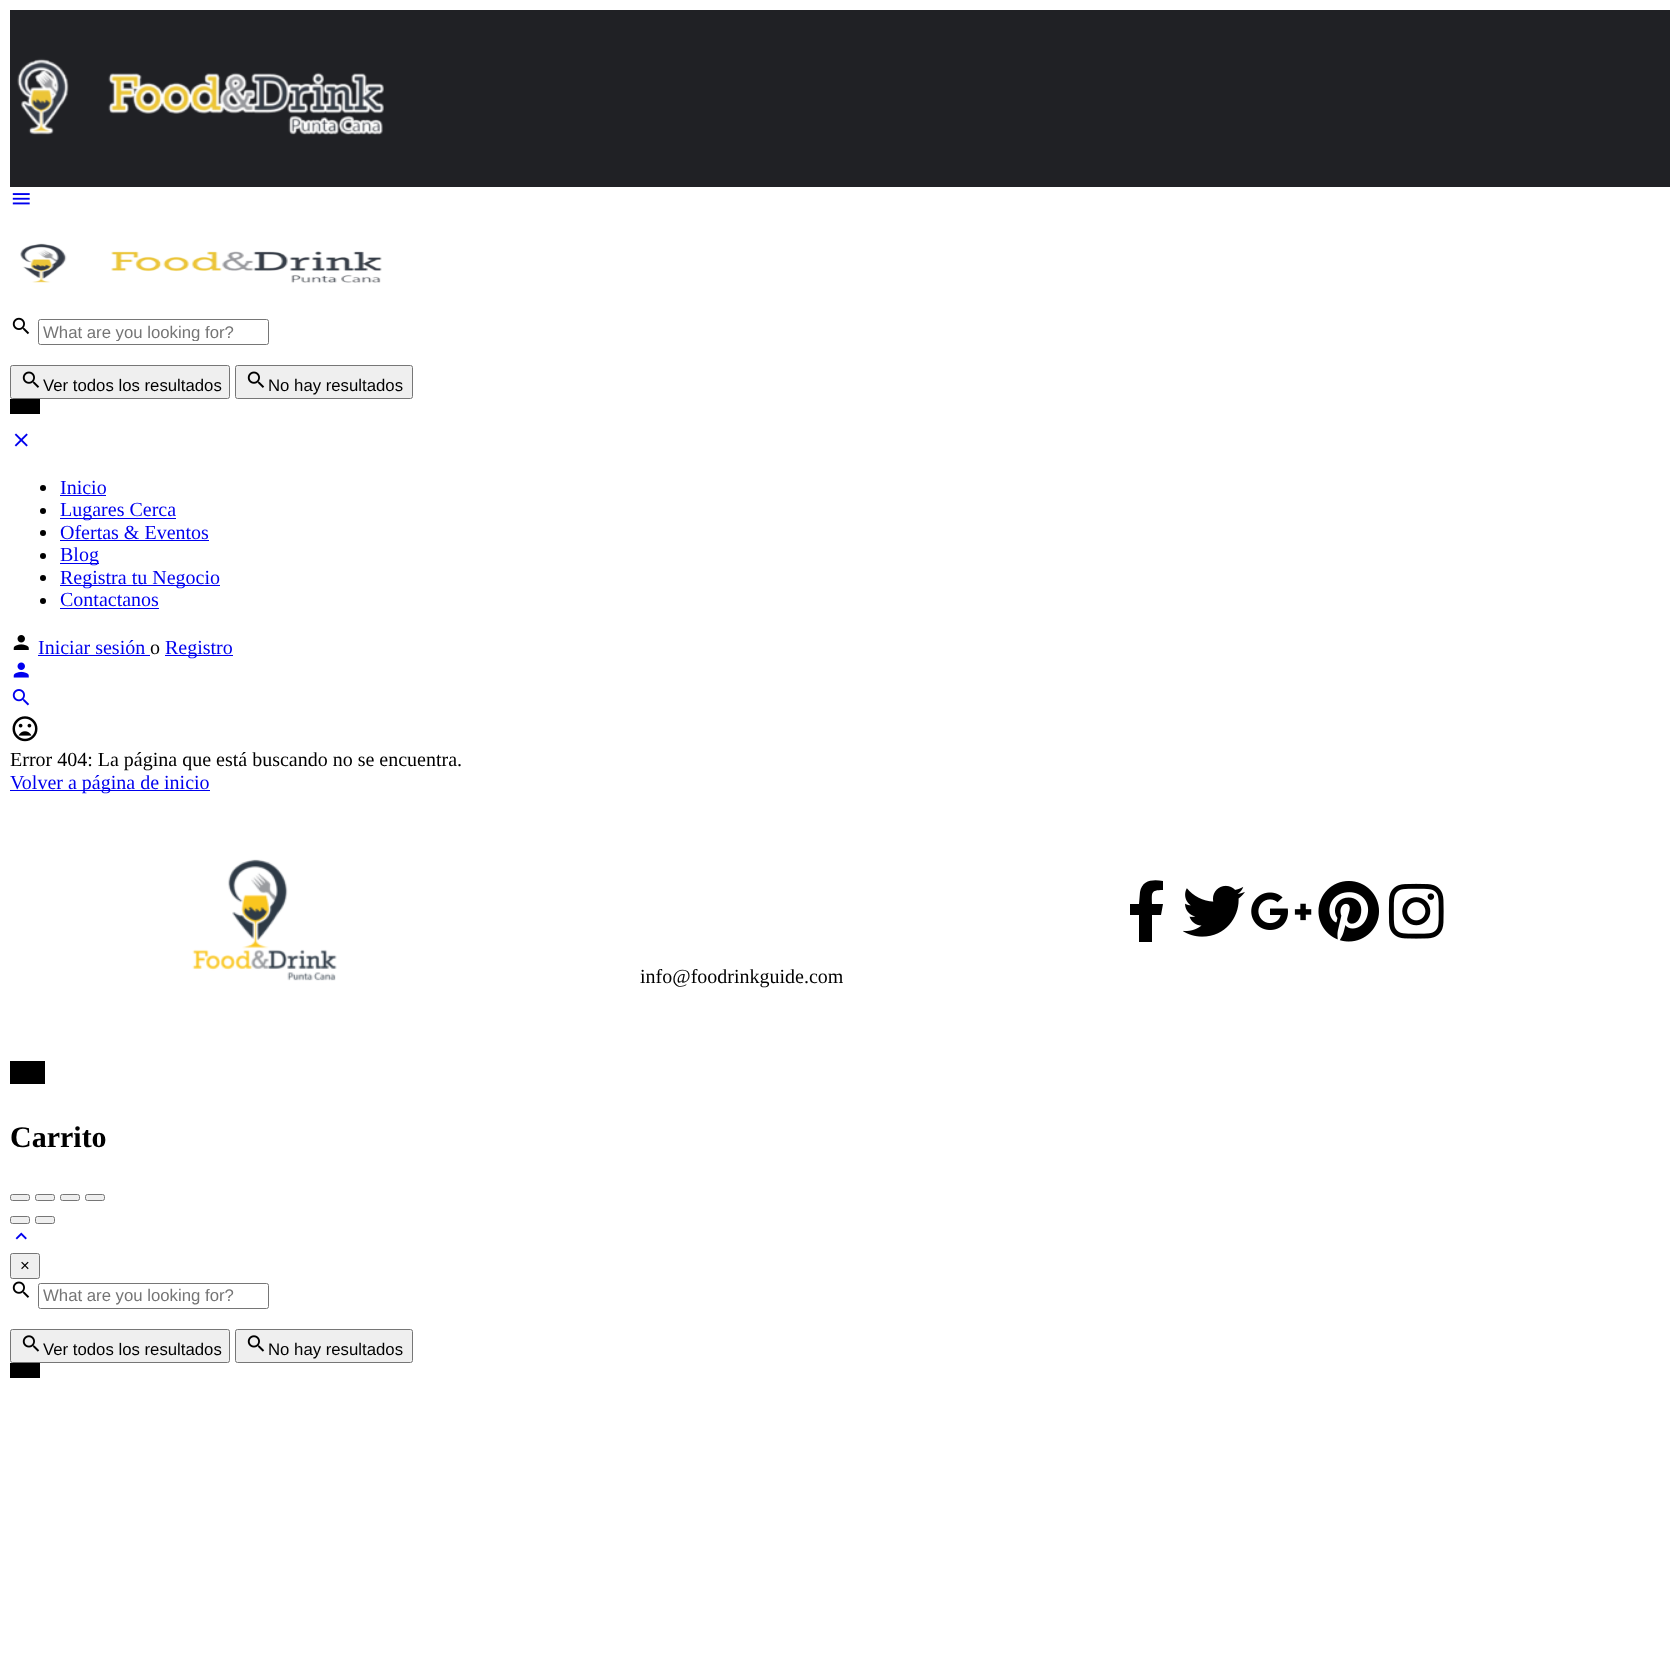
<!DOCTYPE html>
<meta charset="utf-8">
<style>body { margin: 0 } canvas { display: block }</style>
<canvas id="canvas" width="1680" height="1658"></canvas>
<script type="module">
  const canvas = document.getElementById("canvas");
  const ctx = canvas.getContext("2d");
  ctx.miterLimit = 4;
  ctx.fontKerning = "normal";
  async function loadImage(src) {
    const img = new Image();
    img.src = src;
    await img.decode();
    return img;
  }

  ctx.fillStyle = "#ffffff";
  ctx.fillRect(0, 0, 1680, 1658);
  ctx.fillStyle = "#202125";
  ctx.fillRect(10, 10, 1660, 177);
  ctx.drawImage(await loadImage("img1.png"), 17, 58, 367, 77);
  ctx.drawImage(await loadImage("img2.png"), 12, 193, 18, 12);
  ctx.drawImage(await loadImage("img3.png"), 20, 243, 362, 40);
  ctx.drawImage(await loadImage("img4.png"), 12, 317, 18, 18);
  ctx.beginPath();
  ctx.roundRect(38.5, 319.5, 230, 25, 2);
  ctx.strokeStyle = "#767676";
  ctx.stroke();
  ctx.save();
  ctx.beginPath();
  ctx.rect(43, 323, 205, 18);
  ctx.clip();
  ctx.font = "16.75px Liberation Sans";
  ctx.fillStyle = "#757575";
  ctx.fillText("What are you looking for?", 43, 338);
  ctx.restore();
  ctx.fillStyle = "#efefef";
  ctx.beginPath();
  ctx.roundRect(10.5, 365.5, 219, 33, 2);
  ctx.fill();
  ctx.stroke();
  ctx.drawImage(await loadImage("img5.png"), 22, 371, 18, 17);
  ctx.font = "16.75px Liberation Sans";
  ctx.fillStyle = "#000000";
  ctx.fillText("Ver todos los resultados", 43, 391);
  ctx.fillStyle = "#efefef";
  ctx.beginPath();
  ctx.roundRect(235.5, 365.5, 177, 33, 2);
  ctx.fill();
  ctx.stroke();
  ctx.drawImage(await loadImage("img5.png"), 247, 371, 18, 17);
  ctx.fillStyle = "#000000";
  ctx.fillText("No hay resultados", 268, 391);
  ctx.fillRect(10, 399, 30, 15);
  ctx.drawImage(await loadImage("img6.png"), 14, 433, 14, 14);
  ctx.beginPath();
  ctx.arc(43, 488, 3, 0, Math.PI * 2);
  ctx.fill();
  ctx.font = "20px Liberation Serif";
  ctx.fillStyle = "#0000ee";
  ctx.fillText("Inicio", 60, 494);
  ctx.fillRect(60, 495, 46, 1);
  ctx.fillStyle = "#000000";
  ctx.beginPath();
  ctx.arc(43, 511, 3, 0, Math.PI * 2);
  ctx.fill();
  ctx.fillStyle = "#0000ee";
  ctx.fillRect(60, 518, 116, 1);
  ctx.fillText("Lugares Cerca", 60, 516);
  ctx.fillStyle = "#000000";
  ctx.beginPath();
  ctx.arc(43, 533, 3, 0, Math.PI * 2);
  ctx.fill();
  ctx.fillStyle = "#0000ee";
  ctx.fillText("Ofertas & Eventos", 60, 539);
  ctx.fillRect(60, 540, 149, 1);
  ctx.fillStyle = "#000000";
  ctx.beginPath();
  ctx.arc(43, 556, 3, 0, Math.PI * 2);
  ctx.fill();
  ctx.fillStyle = "#0000ee";
  ctx.fillRect(60, 563, 39, 1);
  ctx.fillText("Blog", 60, 561);
  ctx.fillStyle = "#000000";
  ctx.beginPath();
  ctx.arc(43, 578, 3, 0, Math.PI * 2);
  ctx.fill();
  ctx.fillStyle = "#0000ee";
  ctx.fillRect(60, 585, 160, 1);
  ctx.fillText("Registra tu Negocio", 60, 584);
  ctx.fillStyle = "#000000";
  ctx.beginPath();
  ctx.arc(43, 601, 3, 0, Math.PI * 2);
  ctx.fill();
  ctx.fillStyle = "#0000ee";
  ctx.fillText("Contactanos", 60, 606);
  ctx.fillRect(60, 608, 99, 1);
  ctx.drawImage(await loadImage("img7.png"), 13, 635, 16, 15);
  ctx.fillText("Iniciar sesión", 38, 654);
  ctx.fillRect(38, 655, 112, 1);
  ctx.fillStyle = "#000000";
  ctx.fillText("o", 150, 654);
  ctx.fillStyle = "#0000ee";
  ctx.fillRect(165, 655, 68, 1);
  ctx.fillText("Registro", 165, 654);
  ctx.drawImage(await loadImage("img8.png"), 13, 662, 16, 16);
  ctx.drawImage(await loadImage("img9.png"), 12, 689, 18, 17);
  ctx.drawImage(await loadImage("img10.png"), 12, 716, 26, 26);
  ctx.fillStyle = "#000000";
  ctx.fillText("Error 404: La página que está buscando no se encuentra.", 10, 766);
  ctx.fillStyle = "#0000ee";
  ctx.fillRect(10, 790, 200, 1);
  ctx.fillText("Volver a página de inicio", 10, 789);
  ctx.drawImage(await loadImage("img11.png"), 192, 859, 145, 122);
  ctx.fillStyle = "#000000";
  ctx.beginPath();
  ctx.moveTo(1161, 915);
  ctx.lineTo(1163, 904);
  ctx.lineTo(1152, 904);
  ctx.bezierCurveTo(1152, 893, 1150, 890, 1163, 890);
  ctx.lineTo(1163, 881);
  ctx.bezierCurveTo(1153, 879, 1142, 880, 1140, 892);
  ctx.lineTo(1139, 904);
  ctx.lineTo(1130, 904);
  ctx.lineTo(1130, 915);
  ctx.lineTo(1139, 915);
  ctx.lineTo(1139, 942);
  ctx.lineTo(1152, 942);
  ctx.lineTo(1152, 915);
  ctx.closePath();
  ctx.fill();
  ctx.drawImage(await loadImage("img12.png"), 1183, 885, 62, 52);
  ctx.drawImage(await loadImage("img13.png"), 1251, 892, 61, 38);
  ctx.drawImage(await loadImage("img14.png"), 1318, 881, 61, 61);
  ctx.drawImage(await loadImage("img15.png"), 1388, 883, 56, 56);
  ctx.fillText("info@foodrinkguide.com", 640, 983);
  ctx.fillRect(10, 1061, 35, 23);
  ctx.font = "bold 30px Liberation Serif";
  ctx.fillText("Carrito", 10, 1147);
  ctx.fillStyle = "#efefef";
  ctx.beginPath();
  ctx.roundRect(10.5, 1194.5, 19, 6, 2);
  ctx.fill();
  ctx.stroke();
  ctx.beginPath();
  ctx.roundRect(35.5, 1194.5, 19, 6, 2);
  ctx.fill();
  ctx.stroke();
  ctx.beginPath();
  ctx.roundRect(60.5, 1194.5, 19, 6, 2);
  ctx.fill();
  ctx.stroke();
  ctx.beginPath();
  ctx.roundRect(85.5, 1194.5, 19, 6, 2);
  ctx.fill();
  ctx.stroke();
  ctx.beginPath();
  ctx.roundRect(10.5, 1216.5, 19, 7, 2);
  ctx.fill();
  ctx.stroke();
  ctx.beginPath();
  ctx.roundRect(35.5, 1216.5, 19, 7, 2);
  ctx.fill();
  ctx.stroke();
  ctx.drawImage(await loadImage("img16.png"), 15, 1232, 12, 8);
  ctx.beginPath();
  ctx.roundRect(10.5, 1253.5, 29, 25, 2);
  ctx.fill();
  ctx.stroke();
  ctx.font = "16.75px Liberation Sans";
  ctx.fillStyle = "#000000";
  ctx.fillText("×", 20, 1271);
  ctx.drawImage(await loadImage("img17.png"), 12, 1281, 18, 17);
  ctx.beginPath();
  ctx.roundRect(38.5, 1283.5, 230, 25, 2);
  ctx.stroke();
  ctx.fillStyle = "#757575";
  ctx.fillText("What are you looking for?", 43, 1301);
  ctx.fillStyle = "#efefef";
  ctx.beginPath();
  ctx.roundRect(10.5, 1329.5, 219, 33, 2);
  ctx.fill();
  ctx.stroke();
  ctx.drawImage(await loadImage("img18.png"), 22, 1335, 18, 17);
  ctx.fillStyle = "#000000";
  ctx.fillText("Ver todos los resultados", 43, 1355);
  ctx.fillStyle = "#efefef";
  ctx.beginPath();
  ctx.roundRect(235.5, 1329.5, 177, 33, 2);
  ctx.fill();
  ctx.stroke();
  ctx.drawImage(await loadImage("img18.png"), 247, 1335, 18, 17);
  ctx.fillStyle = "#000000";
  ctx.fillText("No hay resultados", 268, 1355);
  ctx.fillRect(10, 1363, 30, 15);
</script>
